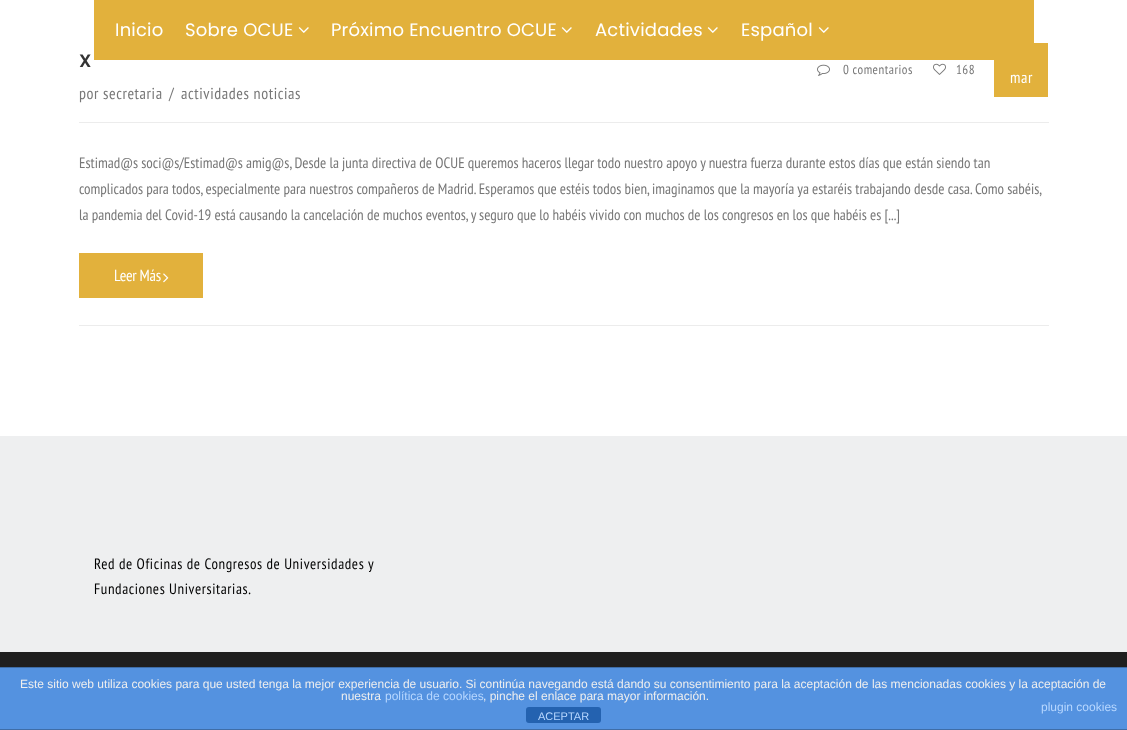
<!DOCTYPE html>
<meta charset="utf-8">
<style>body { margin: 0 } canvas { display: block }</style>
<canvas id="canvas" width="1127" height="730"></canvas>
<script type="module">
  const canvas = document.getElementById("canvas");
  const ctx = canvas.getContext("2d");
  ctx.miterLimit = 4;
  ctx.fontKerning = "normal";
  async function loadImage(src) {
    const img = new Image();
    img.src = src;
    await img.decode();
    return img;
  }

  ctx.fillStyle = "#ffffff";
  ctx.fillRect(0, 0, 1127, 730);
  ctx.fillStyle = "#e2b13c";
  ctx.fillRect(994, 43, 54, 54);
  ctx.fillRect(94, 0, 940, 60);
  ctx.letterSpacing = "0.2px";
  ctx.font = "18px Poppins";
  ctx.fillStyle = "#ffffff";
  ctx.fillText("Inicio", 115, 36);
  ctx.fillText("Sobre OCUE", 185, 36);
  ctx.drawImage(await loadImage("img1.png"), 298, 27, 11, 6);
  ctx.fillText("Próximo Encuentro OCUE", 331, 36);
  ctx.drawImage(await loadImage("img1.png"), 561, 27, 11, 6);
  ctx.fillText("Actividades", 595, 36);
  ctx.drawImage(await loadImage("img1.png"), 707, 27, 11, 6);
  ctx.fillText("Español", 741, 36);
  ctx.drawImage(await loadImage("img1.png"), 818, 27, 11, 6);
  ctx.fillStyle = "#ececec";
  ctx.fillRect(79, 122, 970, 1);
  ctx.letterSpacing = "0px";
  ctx.font = "600 18px Poppins";
  ctx.fillStyle = "#333333";
  ctx.fillText("X", 79, 67);
  ctx.letterSpacing = "0.6px";
  ctx.font = "16px PT Sans Narrow";
  ctx.fillStyle = "#777777";
  ctx.fillText("por secretaria", 79, 99);
  ctx.fillText("/", 169, 99);
  ctx.fillText("actividades noticias", 181, 99);
  ctx.drawImage(await loadImage("img2.png"), 817, 64, 13, 12);
  ctx.letterSpacing = "0.5px";
  ctx.font = "13px PT Sans Narrow";
  ctx.fillText("0 comentarios", 843, 74);
  ctx.drawImage(await loadImage("img3.png"), 933, 63, 13, 12);
  ctx.fillText("168", 956, 74);
  ctx.letterSpacing = "0.6px";
  ctx.font = "16px PT Sans Narrow";
  ctx.fillStyle = "#ffffff";
  ctx.fillText("mar", 1010, 83);
  ctx.fillStyle = "#ececec";
  ctx.fillRect(79, 325, 970, 1);
  ctx.letterSpacing = "0px";
  ctx.font = "15px PT Sans Narrow";
  ctx.fillStyle = "#777777";
  ctx.fillText("Estimad@s soci@s/Estimad@s amig@s, Desde la junta directiva de OCUE queremos haceros llegar todo nuestro apoyo y nuestra fuerza durante estos días que están siendo tan", 79, 168);
  ctx.fillText("complicados para todos, especialmente para nuestros compañeros de Madrid. Esperamos que estéis todos bien, imaginamos que la mayoría ya estaréis trabajando desde casa. Como sabéis,", 79, 194);
  ctx.fillText("la pandemia del Covid-19 está causando la cancelación de muchos eventos, y seguro que lo habéis vivido con muchos de los congresos en los que habéis es [...]", 79, 220);
  ctx.fillStyle = "#e2b13c";
  ctx.fillRect(79, 253, 124, 45);
  ctx.letterSpacing = "-0.25px";
  ctx.font = "16px PT Sans Narrow";
  ctx.fillStyle = "#ffffff";
  ctx.fillText("Leer Más", 114, 281);
  ctx.drawImage(await loadImage("img4.png"), 163, 273, 6, 10);
  ctx.fillStyle = "#eeeff0";
  ctx.fillRect(0, 436, 1127, 216);
  ctx.letterSpacing = "0.6px";
  ctx.font = "15px PT Sans Narrow";
  ctx.fillStyle = "#000000";
  ctx.fillText("Red de Oficinas de Congresos de Universidades y", 94, 569);
  ctx.fillText("Fundaciones Universitarias.", 94, 594);
  ctx.fillStyle = "#1f1f1f";
  ctx.fillRect(0, 652, 1127, 15);
  ctx.fillStyle = "#5492e0";
  ctx.fillRect(0, 668, 1127, 61);
  ctx.fillStyle = "#3f6da7";
  ctx.fillRect(0, 667, 1127, 1);
  ctx.fillRect(0, 729, 1127, 1);
  ctx.letterSpacing = "0px";
  ctx.font = "12px Liberation Sans";
  ctx.fillStyle = "#eeeeee";
  ctx.fillText("Este sitio web utiliza cookies para que usted tenga la mejor experiencia de usuario. Si continúa navegando está dando su consentimiento para la aceptación de las mencionadas cookies y la aceptación de", 20, 688);
  ctx.fillText("nuestra", 341, 700);
  ctx.fillStyle = "#b7d7ff";
  ctx.fillText("política de cookies", 385, 700);
  ctx.fillStyle = "#eeeeee";
  ctx.fillText(", pinche el enlace para mayor información.", 483, 700);
  ctx.fillStyle = "#b7d7ff";
  ctx.fillText("plugin cookies", 1041, 711);
  ctx.fillStyle = "#2462b0";
  ctx.beginPath();
  ctx.roundRect(526, 707, 75, 16, 3);
  ctx.fill();
  ctx.font = "11px Liberation Sans";
  ctx.fillStyle = "#b7d7ff";
  ctx.fillText("ACEPTAR", 538, 720);
</script>
